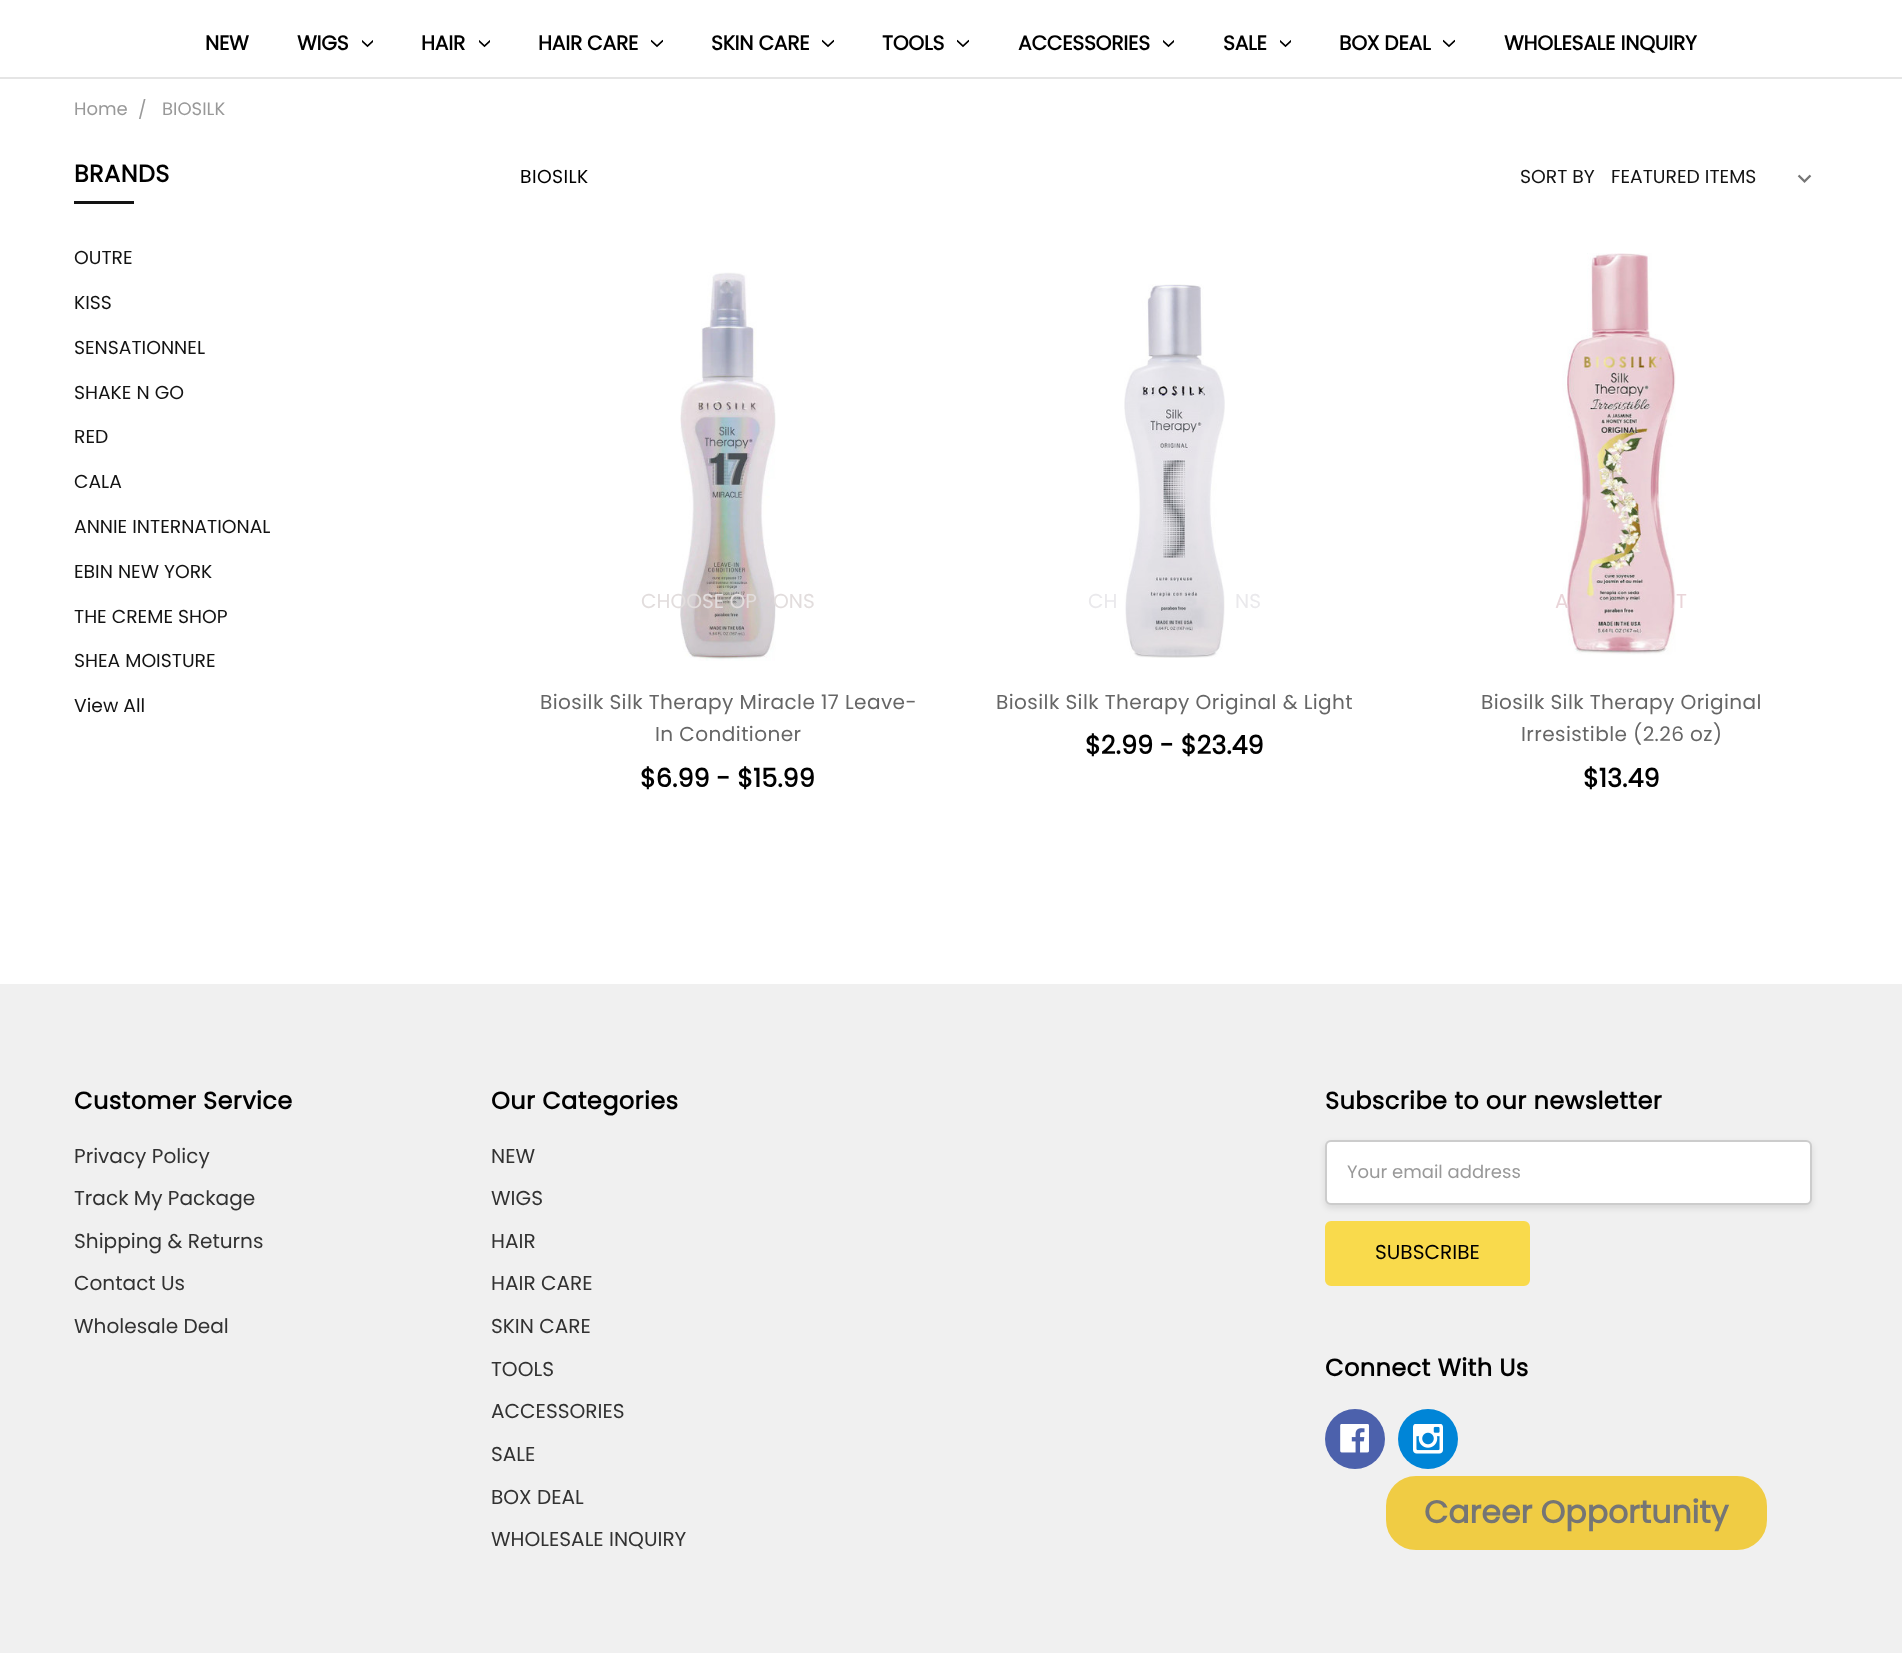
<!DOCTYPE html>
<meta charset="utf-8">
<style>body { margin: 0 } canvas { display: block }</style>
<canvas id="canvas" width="1902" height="1666"></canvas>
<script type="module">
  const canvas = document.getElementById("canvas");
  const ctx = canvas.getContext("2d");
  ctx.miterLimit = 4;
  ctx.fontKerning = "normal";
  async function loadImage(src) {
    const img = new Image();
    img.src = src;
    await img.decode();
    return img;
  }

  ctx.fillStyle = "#ffffff";
  ctx.fillRect(0, 0, 1902, 1666);
  ctx.fillStyle = "#e5e5e5";
  ctx.fillRect(0, 77, 1902, 2);
  ctx.letterSpacing = "-0.25px";
  ctx.font = "bold 20.25px Poppins";
  ctx.fillStyle = "#000000";
  ctx.fillText("NEW", 205, 50);
  ctx.fillText("WIGS", 297, 50);
  ctx.drawImage(await loadImage("img1.png"), 362, 40, 11, 8);
  ctx.fillText("HAIR", 421, 50);
  ctx.drawImage(await loadImage("img1.png"), 479, 40, 11, 8);
  ctx.fillText("HAIR CARE", 538, 50);
  ctx.drawImage(await loadImage("img2.png"), 651, 39, 12, 9);
  ctx.fillText("SKIN CARE", 711, 50);
  ctx.drawImage(await loadImage("img2.png"), 822, 39, 12, 9);
  ctx.fillText("TOOLS", 882, 50);
  ctx.drawImage(await loadImage("img2.png"), 957, 39, 12, 9);
  ctx.fillText("ACCESSORIES", 1018, 50);
  ctx.drawImage(await loadImage("img1.png"), 1163, 40, 11, 8);
  ctx.fillText("SALE", 1223, 50);
  ctx.drawImage(await loadImage("img1.png"), 1280, 40, 11, 8);
  ctx.fillText("BOX DEAL", 1339, 50);
  ctx.drawImage(await loadImage("img2.png"), 1443, 39, 12, 9);
  ctx.fillText("WHOLESALE INQUIRY", 1504, 50);
  ctx.letterSpacing = "0px";
  ctx.font = "18px Poppins";
  ctx.fillStyle = "#999999";
  ctx.fillText("Home", 74, 115);
  ctx.fillText("/", 138, 116);
  ctx.fillText("BIOSILK", 162, 115);
  ctx.letterSpacing = "0.4px";
  ctx.font = "bold 24px Poppins";
  ctx.fillStyle = "#000000";
  ctx.fillText("BRANDS", 74, 182);
  ctx.fillStyle = "#131313";
  ctx.fillRect(74, 201, 60, 3);
  ctx.letterSpacing = "0px";
  ctx.font = "18.75px Poppins";
  ctx.fillText("OUTRE", 74, 264);
  ctx.fillText("KISS", 74, 309);
  ctx.fillText("SENSATIONNEL", 74, 354);
  ctx.fillText("SHAKE N GO", 74, 399);
  ctx.fillText("RED", 74, 443);
  ctx.fillText("CALA", 74, 488);
  ctx.fillText("ANNIE INTERNATIONAL", 74, 533);
  ctx.fillText("EBIN NEW YORK", 74, 578);
  ctx.fillText("THE CREME SHOP", 74, 623);
  ctx.fillText("SHEA MOISTURE", 74, 667);
  ctx.fillText("View All", 74, 712);
  ctx.letterSpacing = "0.4px";
  ctx.fillStyle = "#000000";
  ctx.fillText("BIOSILK", 520, 183);
  ctx.letterSpacing = "0px";
  ctx.fillStyle = "#131313";
  ctx.fillText("SORT BY", 1520, 183);
  ctx.drawImage(await loadImage("img3.png"), 1797, 174, 15, 9);
  ctx.fillText("FEATURED ITEMS", 1611, 183);
  ctx.drawImage(await loadImage("img4.png"), 680, 272, 96, 389);
  ctx.font = "20.1px Poppins";
  ctx.fillStyle = "#e2dddd";
  ctx.fillText("CHOOSE OP", 641, 608);
  ctx.fillText("ONS", 773, 608);
  ctx.letterSpacing = "0.4px";
  ctx.fillStyle = "#666666";
  ctx.fillText("Biosilk Silk Therapy Miracle 17 Leave-", 540, 709);
  ctx.fillText("In Conditioner", 655, 741);
  ctx.letterSpacing = "0px";
  ctx.font = "bold 25.5px Poppins";
  ctx.fillStyle = "#000000";
  ctx.fillText("$6.99 - $15.99", 640, 787);
  ctx.drawImage(await loadImage("img5.png"), 1124, 284, 101, 374);
  ctx.font = "20.1px Poppins";
  ctx.fillStyle = "#eae9ec";
  ctx.fillText("CH", 1088, 608);
  ctx.fillText("NS", 1235, 608);
  ctx.letterSpacing = "0.4px";
  ctx.fillStyle = "#666666";
  ctx.fillText("Biosilk Silk Therapy Original & Light", 996, 709);
  ctx.letterSpacing = "0px";
  ctx.font = "bold 25.5px Poppins";
  ctx.fillStyle = "#000000";
  ctx.fillText("$2.99 - $23.49", 1085, 754);
  ctx.drawImage(await loadImage("img6.png"), 1562, 253, 114, 402);
  ctx.font = "20.1px Poppins";
  ctx.fillStyle = "#e9d4d8";
  ctx.fillText("A", 1555, 608);
  ctx.fillText("T", 1676, 608);
  ctx.letterSpacing = "0.4px";
  ctx.fillStyle = "#666666";
  ctx.fillText("Biosilk Silk Therapy Original", 1481, 709);
  ctx.fillText("Irresistible (2.26 oz)", 1521, 741);
  ctx.letterSpacing = "0px";
  ctx.font = "bold 25.5px Poppins";
  ctx.fillStyle = "#000000";
  ctx.fillText("$13.49", 1583, 787);
  ctx.fillStyle = "#f0f0f0";
  ctx.fillRect(0, 984, 1902, 669);
  ctx.letterSpacing = "0.4px";
  ctx.font = "bold 24px Poppins";
  ctx.fillStyle = "#000000";
  ctx.fillText("Customer Service", 74, 1109);
  ctx.letterSpacing = "0px";
  ctx.font = "20.1px Poppins";
  ctx.fillStyle = "#323232";
  ctx.fillText("Privacy Policy", 74, 1163);
  ctx.fillText("Track My Package", 74, 1205);
  ctx.fillText("Shipping & Returns", 74, 1248);
  ctx.fillText("Contact Us", 74, 1290);
  ctx.fillText("Wholesale Deal", 74, 1333);
  ctx.letterSpacing = "0.4px";
  ctx.font = "bold 24px Poppins";
  ctx.fillStyle = "#000000";
  ctx.fillText("Our Categories", 491, 1109);
  ctx.letterSpacing = "0px";
  ctx.font = "20.1px Poppins";
  ctx.fillStyle = "#323232";
  ctx.fillText("NEW", 491, 1163);
  ctx.fillText("WIGS", 491, 1205);
  ctx.fillText("HAIR", 491, 1248);
  ctx.fillText("HAIR CARE", 491, 1290);
  ctx.fillText("SKIN CARE", 491, 1333);
  ctx.fillText("TOOLS", 491, 1376);
  ctx.fillText("ACCESSORIES", 491, 1418);
  ctx.fillText("SALE", 491, 1461);
  ctx.fillText("BOX DEAL", 491, 1504);
  ctx.fillText("WHOLESALE INQUIRY", 491, 1546);
  ctx.letterSpacing = "0.4px";
  ctx.font = "bold 24px Poppins";
  ctx.fillStyle = "#000000";
  ctx.fillText("Subscribe to our newsletter", 1325, 1109);
  ctx.fillStyle = "rgba(0, 0, 0, 0.1)";
  ctx.filter = "blur(3px)";
  ctx.beginPath();
  ctx.roundRect(1325, 1143, 487, 65, 6);
  ctx.fill();
  ctx.filter = "none";
  ctx.fillStyle = "#ffffff";
  ctx.beginPath();
  ctx.roundRect(1326, 1141, 485, 63, 5);
  ctx.fill();
  ctx.strokeStyle = "#cccccc";
  ctx.lineWidth = 2;
  ctx.stroke();
  ctx.letterSpacing = "0px";
  ctx.font = "18px Poppins";
  ctx.fillStyle = "#999999";
  ctx.fillText("Your email address", 1347, 1178);
  ctx.fillStyle = "#f9da4c";
  ctx.beginPath();
  ctx.roundRect(1326, 1222, 203, 63, 5);
  ctx.fill();
  ctx.strokeStyle = "#f9da4c";
  ctx.stroke();
  ctx.font = "20.1px Poppins";
  ctx.fillStyle = "#000000";
  ctx.fillText("SUBSCRIBE", 1375, 1259);
  ctx.letterSpacing = "0.4px";
  ctx.font = "bold 24px Poppins";
  ctx.fillText("Connect With Us", 1325, 1376);
  ctx.fillStyle = "#4c61ac";
  ctx.beginPath();
  ctx.arc(1355, 1439, 30, 0, Math.PI * 2);
  ctx.fill();
  ctx.drawImage(await loadImage("img7.png"), 1340, 1424, 29, 29);
  ctx.fillStyle = "#0085d7";
  ctx.beginPath();
  ctx.arc(1428, 1439, 30, 0, Math.PI * 2);
  ctx.fill();
  ctx.drawImage(await loadImage("img8.png"), 1413, 1424, 30, 30);
  ctx.fillStyle = "#f0cc44";
  ctx.beginPath();
  ctx.roundRect(1387, 1477, 379, 72, 29);
  ctx.fill();
  ctx.strokeStyle = "#f0cc44";
  ctx.stroke();
  ctx.letterSpacing = "0px";
  ctx.font = "bold 31.5px Poppins";
  ctx.fillStyle = "#757575";
  ctx.fillText("Career Opportunity", 1424, 1523);
</script>
